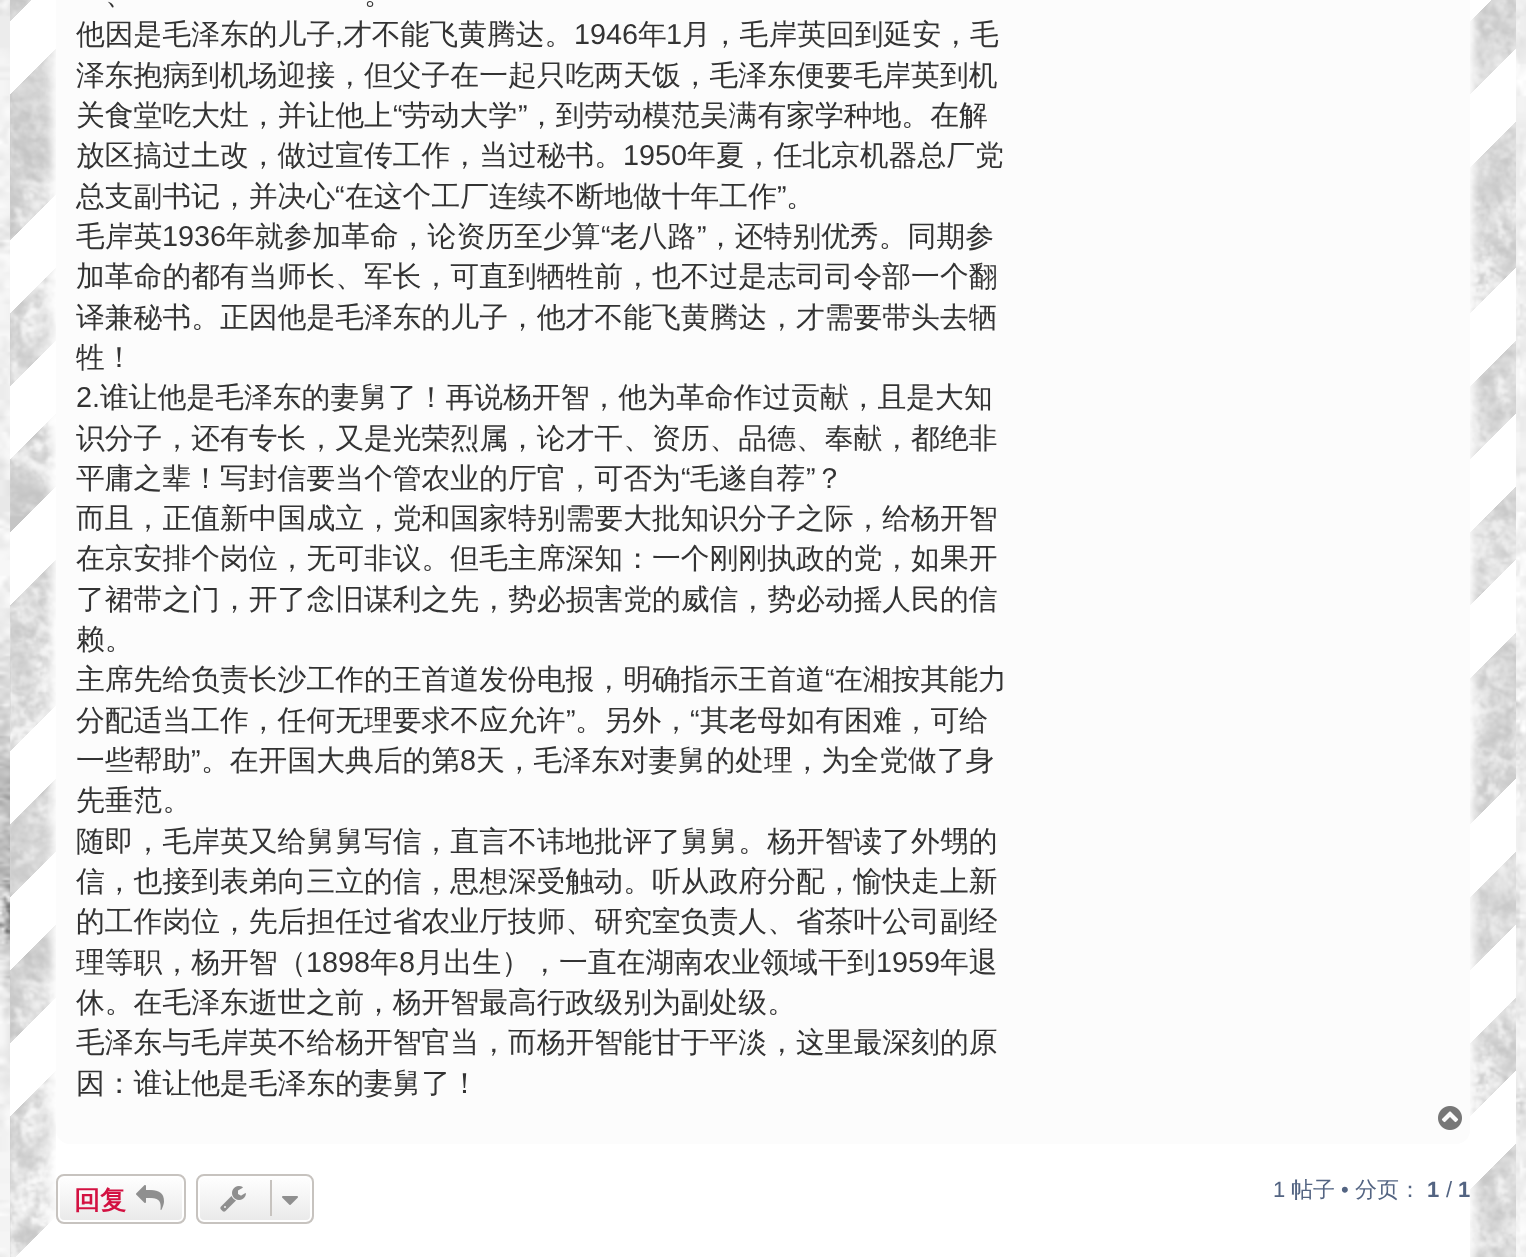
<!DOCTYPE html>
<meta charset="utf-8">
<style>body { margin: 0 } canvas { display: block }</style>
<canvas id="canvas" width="1526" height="1257"></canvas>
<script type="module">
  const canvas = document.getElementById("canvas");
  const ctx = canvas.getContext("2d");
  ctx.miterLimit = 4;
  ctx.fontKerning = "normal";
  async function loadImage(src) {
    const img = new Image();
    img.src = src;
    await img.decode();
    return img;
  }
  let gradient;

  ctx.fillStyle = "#ffffff";
  ctx.fillRect(0, 0, 1526, 1257);
  ctx.drawImage(await loadImage("img1.png"), 0, 0, 1526, 1257);
  gradient = ctx.createLinearGradient(-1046, -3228, 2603, 421);
  gradient.addColorStop(0, "#c5c5c5");
  gradient.addColorStop(0.01, "#c5c5c5");
  gradient.addColorStop(0.01, "#ffffff");
  gradient.addColorStop(0.02, "#ffffff");
  gradient.addColorStop(0.02, "#c5c5c5");
  gradient.addColorStop(0.03, "#c5c5c5");
  gradient.addColorStop(0.03, "#ffffff");
  gradient.addColorStop(0.05, "#ffffff");
  gradient.addColorStop(0.05, "#c5c5c5");
  gradient.addColorStop(0.06, "#c5c5c5");
  gradient.addColorStop(0.06, "#ffffff");
  gradient.addColorStop(0.07, "#ffffff");
  gradient.addColorStop(0.07, "#c5c5c5");
  gradient.addColorStop(0.08, "#c5c5c5");
  gradient.addColorStop(0.08, "#ffffff");
  gradient.addColorStop(0.09, "#ffffff");
  gradient.addColorStop(0.09, "#c5c5c5");
  gradient.addColorStop(0.1, "#c5c5c5");
  gradient.addColorStop(0.1, "#ffffff");
  gradient.addColorStop(0.12, "#ffffff");
  gradient.addColorStop(0.12, "#c5c5c5");
  gradient.addColorStop(0.13, "#c5c5c5");
  gradient.addColorStop(0.13, "#ffffff");
  gradient.addColorStop(0.14, "#ffffff");
  gradient.addColorStop(0.14, "#c5c5c5");
  gradient.addColorStop(0.15, "#c5c5c5");
  gradient.addColorStop(0.15, "#ffffff");
  gradient.addColorStop(0.16, "#ffffff");
  gradient.addColorStop(0.16, "#c5c5c5");
  gradient.addColorStop(0.17, "#c5c5c5");
  gradient.addColorStop(0.17, "#ffffff");
  gradient.addColorStop(0.19, "#ffffff");
  gradient.addColorStop(0.19, "#c5c5c5");
  gradient.addColorStop(0.2, "#c5c5c5");
  gradient.addColorStop(0.2, "#ffffff");
  gradient.addColorStop(0.21, "#ffffff");
  gradient.addColorStop(0.21, "#c5c5c5");
  gradient.addColorStop(0.22, "#c5c5c5");
  gradient.addColorStop(0.22, "#ffffff");
  gradient.addColorStop(0.23, "#ffffff");
  gradient.addColorStop(0.23, "#c5c5c5");
  gradient.addColorStop(0.24, "#c5c5c5");
  gradient.addColorStop(0.24, "#ffffff");
  gradient.addColorStop(0.26, "#ffffff");
  gradient.addColorStop(0.26, "#c5c5c5");
  gradient.addColorStop(0.27, "#c5c5c5");
  gradient.addColorStop(0.27, "#ffffff");
  gradient.addColorStop(0.28, "#ffffff");
  gradient.addColorStop(0.28, "#c5c5c5");
  gradient.addColorStop(0.29, "#c5c5c5");
  gradient.addColorStop(0.29, "#ffffff");
  gradient.addColorStop(0.3, "#ffffff");
  gradient.addColorStop(0.3, "#c5c5c5");
  gradient.addColorStop(0.31, "#c5c5c5");
  gradient.addColorStop(0.31, "#ffffff");
  gradient.addColorStop(0.33, "#ffffff");
  gradient.addColorStop(0.33, "#c5c5c5");
  gradient.addColorStop(0.34, "#c5c5c5");
  gradient.addColorStop(0.34, "#ffffff");
  gradient.addColorStop(0.35, "#ffffff");
  gradient.addColorStop(0.35, "#c5c5c5");
  gradient.addColorStop(0.36, "#c5c5c5");
  gradient.addColorStop(0.36, "#ffffff");
  gradient.addColorStop(0.37, "#ffffff");
  gradient.addColorStop(0.37, "#c5c5c5");
  gradient.addColorStop(0.38, "#c5c5c5");
  gradient.addColorStop(0.38, "#ffffff");
  gradient.addColorStop(0.4, "#ffffff");
  gradient.addColorStop(0.4, "#c5c5c5");
  gradient.addColorStop(0.41, "#c5c5c5");
  gradient.addColorStop(0.41, "#ffffff");
  gradient.addColorStop(0.42, "#ffffff");
  gradient.addColorStop(0.42, "#c5c5c5");
  gradient.addColorStop(0.43, "#c5c5c5");
  gradient.addColorStop(0.43, "#ffffff");
  gradient.addColorStop(0.44, "#ffffff");
  gradient.addColorStop(0.44, "#c5c5c5");
  gradient.addColorStop(0.45, "#c5c5c5");
  gradient.addColorStop(0.45, "#ffffff");
  gradient.addColorStop(0.47, "#ffffff");
  gradient.addColorStop(0.47, "#c5c5c5");
  gradient.addColorStop(0.48, "#c5c5c5");
  gradient.addColorStop(0.48, "#ffffff");
  gradient.addColorStop(0.49, "#ffffff");
  gradient.addColorStop(0.49, "#c5c5c5");
  gradient.addColorStop(0.5, "#c5c5c5");
  gradient.addColorStop(0.5, "#ffffff");
  gradient.addColorStop(0.51, "#ffffff");
  gradient.addColorStop(0.51, "#c5c5c5");
  gradient.addColorStop(0.52, "#c5c5c5");
  gradient.addColorStop(0.52, "#ffffff");
  gradient.addColorStop(0.53, "#ffffff");
  gradient.addColorStop(0.53, "#c5c5c5");
  gradient.addColorStop(0.55, "#c5c5c5");
  gradient.addColorStop(0.55, "#ffffff");
  gradient.addColorStop(0.56, "#ffffff");
  gradient.addColorStop(0.56, "#c5c5c5");
  gradient.addColorStop(0.57, "#c5c5c5");
  gradient.addColorStop(0.57, "#ffffff");
  gradient.addColorStop(0.58, "#ffffff");
  gradient.addColorStop(0.58, "#c5c5c5");
  gradient.addColorStop(0.59, "#c5c5c5");
  gradient.addColorStop(0.59, "#ffffff");
  gradient.addColorStop(0.6, "#ffffff");
  gradient.addColorStop(0.6, "#c5c5c5");
  gradient.addColorStop(0.62, "#c5c5c5");
  gradient.addColorStop(0.62, "#ffffff");
  gradient.addColorStop(0.63, "#ffffff");
  gradient.addColorStop(0.63, "#c5c5c5");
  gradient.addColorStop(0.64, "#c5c5c5");
  gradient.addColorStop(0.64, "#ffffff");
  gradient.addColorStop(0.65, "#ffffff");
  gradient.addColorStop(0.65, "#c5c5c5");
  gradient.addColorStop(0.66, "#c5c5c5");
  gradient.addColorStop(0.66, "#ffffff");
  gradient.addColorStop(0.67, "#ffffff");
  gradient.addColorStop(0.67, "#c5c5c5");
  gradient.addColorStop(0.69, "#c5c5c5");
  gradient.addColorStop(0.69, "#ffffff");
  gradient.addColorStop(0.7, "#ffffff");
  gradient.addColorStop(0.7, "#c5c5c5");
  gradient.addColorStop(0.71, "#c5c5c5");
  gradient.addColorStop(0.71, "#ffffff");
  gradient.addColorStop(0.72, "#ffffff");
  gradient.addColorStop(0.72, "#c5c5c5");
  gradient.addColorStop(0.73, "#c5c5c5");
  gradient.addColorStop(0.73, "#ffffff");
  gradient.addColorStop(0.74, "#ffffff");
  gradient.addColorStop(0.74, "#c5c5c5");
  gradient.addColorStop(0.76, "#c5c5c5");
  gradient.addColorStop(0.76, "#ffffff");
  gradient.addColorStop(0.77, "#ffffff");
  gradient.addColorStop(0.77, "#c5c5c5");
  gradient.addColorStop(0.78, "#c5c5c5");
  gradient.addColorStop(0.78, "#ffffff");
  gradient.addColorStop(0.79, "#ffffff");
  gradient.addColorStop(0.79, "#c5c5c5");
  gradient.addColorStop(0.8, "#c5c5c5");
  gradient.addColorStop(0.8, "#ffffff");
  gradient.addColorStop(0.81, "#ffffff");
  gradient.addColorStop(0.81, "#c5c5c5");
  gradient.addColorStop(0.83, "#c5c5c5");
  gradient.addColorStop(0.83, "#ffffff");
  gradient.addColorStop(0.84, "#ffffff");
  gradient.addColorStop(0.84, "#c5c5c5");
  gradient.addColorStop(0.85, "#c5c5c5");
  gradient.addColorStop(0.85, "#ffffff");
  gradient.addColorStop(0.86, "#ffffff");
  gradient.addColorStop(0.86, "#c5c5c5");
  gradient.addColorStop(0.87, "#c5c5c5");
  gradient.addColorStop(0.87, "#ffffff");
  gradient.addColorStop(0.88, "#ffffff");
  gradient.addColorStop(0.88, "#c5c5c5");
  gradient.addColorStop(0.9, "#c5c5c5");
  gradient.addColorStop(0.9, "#ffffff");
  gradient.addColorStop(0.91, "#ffffff");
  gradient.addColorStop(0.91, "#c5c5c5");
  gradient.addColorStop(0.92, "#c5c5c5");
  gradient.addColorStop(0.92, "#ffffff");
  gradient.addColorStop(0.93, "#ffffff");
  gradient.addColorStop(0.93, "#c5c5c5");
  gradient.addColorStop(0.94, "#c5c5c5");
  gradient.addColorStop(0.94, "#ffffff");
  gradient.addColorStop(0.95, "#ffffff");
  gradient.addColorStop(0.95, "#c5c5c5");
  gradient.addColorStop(0.97, "#c5c5c5");
  gradient.addColorStop(0.97, "#ffffff");
  gradient.addColorStop(0.98, "#ffffff");
  gradient.addColorStop(0.98, "#c5c5c5");
  gradient.addColorStop(0.99, "#c5c5c5");
  gradient.addColorStop(0.99, "#ffffff");
  gradient.addColorStop(1, "#ffffff");
  ctx.fillStyle = gradient;
  ctx.fillRect(10, 0, 1506, 1257);
  ctx.drawImage(await loadImage("img2.png"), 10, 0, 1506, 1257);
  ctx.fillStyle = "#ffffff";
  ctx.filter = "blur(5px)";
  ctx.beginPath();
  ctx.rect(52, -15, 1422, 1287);
  ctx.fill();
  ctx.filter = "none";
  ctx.fillRect(56, 1130, 1414, 127);
  ctx.fillStyle = "#fcfcfc";
  ctx.beginPath();
  ctx.roundRect(56, -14, 1414, 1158, 14);
  ctx.fill();
  ctx.font = "500 28.8px WenQuanYi Zen Hei";
  ctx.fillStyle = "#333333";
  ctx.fillText("、", 105, 4);
  ctx.fillText("。", 364, 4);
  ctx.fillText("他因是毛泽东的儿子", 76, 44);
  ctx.font = "28.8px Liberation Sans";
  ctx.fillText(",", 335, 44);
  ctx.font = "500 28.8px WenQuanYi Zen Hei";
  ctx.fillText("才不能飞黄腾达。", 343, 44);
  ctx.font = "28.8px Liberation Sans";
  ctx.fillText("1946", 574, 44);
  ctx.font = "500 28.8px WenQuanYi Zen Hei";
  ctx.fillText("年", 638, 44);
  ctx.font = "28.8px Liberation Sans";
  ctx.fillText("1", 666, 44);
  ctx.font = "500 28.8px WenQuanYi Zen Hei";
  ctx.fillText("月，毛岸英回到延安，毛", 682, 44);
  ctx.fillText("泽东抱病到机场迎接，但父子在一起只吃两天饭，毛泽东便要毛岸英到机", 76, 85);
  ctx.fillText("关食堂吃大灶，并让他上", 76, 125);
  ctx.font = "28.8px Liberation Sans";
  ctx.fillText("“", 393, 125);
  ctx.font = "500 28.8px WenQuanYi Zen Hei";
  ctx.fillText("劳动大学", 402, 125);
  ctx.font = "28.8px Liberation Sans";
  ctx.fillText("”", 518, 125);
  ctx.font = "500 28.8px WenQuanYi Zen Hei";
  ctx.fillText("，到劳动模范吴满有家学种地。在解", 527, 125);
  ctx.fillText("放区搞过土改，做过宣传工作，当过秘书。", 76, 165);
  ctx.font = "28.8px Liberation Sans";
  ctx.fillText("1950", 623, 165);
  ctx.font = "500 28.8px WenQuanYi Zen Hei";
  ctx.fillText("年夏，任北京机器总厂党", 687, 165);
  ctx.fillText("总支副书记，并决心", 76, 206);
  ctx.font = "28.8px Liberation Sans";
  ctx.fillText("“", 335, 206);
  ctx.font = "500 28.8px WenQuanYi Zen Hei";
  ctx.fillText("在这个工厂连续不断地做十年工作", 345, 206);
  ctx.font = "28.8px Liberation Sans";
  ctx.fillText("”", 777, 206);
  ctx.font = "500 28.8px WenQuanYi Zen Hei";
  ctx.fillText("。", 786, 206);
  ctx.fillText("毛岸英", 76, 246);
  ctx.font = "28.8px Liberation Sans";
  ctx.fillText("1936", 162, 246);
  ctx.font = "500 28.8px WenQuanYi Zen Hei";
  ctx.fillText("年就参加革命，论资历至少算", 226, 246);
  ctx.font = "28.8px Liberation Sans";
  ctx.fillText("“", 601, 246);
  ctx.font = "500 28.8px WenQuanYi Zen Hei";
  ctx.fillText("老八路", 610, 246);
  ctx.font = "28.8px Liberation Sans";
  ctx.fillText("”", 697, 246);
  ctx.font = "500 28.8px WenQuanYi Zen Hei";
  ctx.fillText("，还特别优秀。同期参", 706, 246);
  ctx.fillText("加革命的都有当师长、军长，可直到牺牲前，也不过是志司司令部一个翻", 76, 286);
  ctx.fillText("译兼秘书。正因他是毛泽东的儿子，他才不能飞黄腾达，才需要带头去牺", 76, 327);
  ctx.fillText("牲！", 76, 367);
  ctx.font = "28.8px Liberation Sans";
  ctx.fillText("2.", 76, 407);
  ctx.font = "500 28.8px WenQuanYi Zen Hei";
  ctx.fillText("谁让他是毛泽东的妻舅了！再说杨开智，他为革命作过贡献，且是大知", 100, 407);
  ctx.fillText("识分子，还有专长，又是光荣烈属，论才干、资历、品德、奉献，都绝非", 76, 448);
  ctx.fillText("平庸之辈！写封信要当个管农业的厅官，可否为", 76, 488);
  ctx.font = "28.8px Liberation Sans";
  ctx.fillText("“", 681, 488);
  ctx.font = "500 28.8px WenQuanYi Zen Hei";
  ctx.fillText("毛遂自荐", 690, 488);
  ctx.font = "28.8px Liberation Sans";
  ctx.fillText("”", 806, 488);
  ctx.font = "500 28.8px WenQuanYi Zen Hei";
  ctx.fillText("？", 815, 488);
  ctx.fillText("而且，正值新中国成立，党和国家特别需要大批知识分子之际，给杨开智", 76, 528);
  ctx.fillText("在京安排个岗位，无可非议。但毛主席深知：一个刚刚执政的党，如果开", 76, 568);
  ctx.fillText("了裙带之门，开了念旧谋利之先，势必损害党的威信，势必动摇人民的信", 76, 609);
  ctx.fillText("赖。", 76, 649);
  ctx.fillText("主席先给负责长沙工作的王首道发份电报，明确指示王首道", 76, 689);
  ctx.font = "28.8px Liberation Sans";
  ctx.fillText("“", 825, 689);
  ctx.font = "500 28.8px WenQuanYi Zen Hei";
  ctx.fillText("在湘按其能力", 834, 689);
  ctx.fillText("分配适当工作，任何无理要求不应允许", 76, 730);
  ctx.font = "28.8px Liberation Sans";
  ctx.fillText("”", 566, 730);
  ctx.font = "500 28.8px WenQuanYi Zen Hei";
  ctx.fillText("。另外，", 575, 730);
  ctx.font = "28.8px Liberation Sans";
  ctx.fillText("“", 690, 730);
  ctx.font = "500 28.8px WenQuanYi Zen Hei";
  ctx.fillText("其老母如有困难，可给", 700, 730);
  ctx.fillText("一些帮助", 76, 770);
  ctx.font = "28.8px Liberation Sans";
  ctx.fillText("”", 191, 770);
  ctx.font = "500 28.8px WenQuanYi Zen Hei";
  ctx.fillText("。在开国大典后的第", 201, 770);
  ctx.font = "28.8px Liberation Sans";
  ctx.fillText("8", 460, 770);
  ctx.font = "500 28.8px WenQuanYi Zen Hei";
  ctx.fillText("天，毛泽东对妻舅的处理，为全党做了身", 476, 770);
  ctx.fillText("先垂范。", 76, 810);
  ctx.fillText("随即，毛岸英又给舅舅写信，直言不讳地批评了舅舅。杨开智读了外甥的", 76, 851);
  ctx.fillText("信，也接到表弟向三立的信，思想深受触动。听从政府分配，愉快走上新", 76, 891);
  ctx.fillText("的工作岗位，先后担任过省农业厅技师、研究室负责人、省茶叶公司副经", 76, 931);
  ctx.fillText("理等职，杨开智（", 76, 972);
  ctx.font = "28.8px Liberation Sans";
  ctx.fillText("1898", 306, 972);
  ctx.font = "500 28.8px WenQuanYi Zen Hei";
  ctx.fillText("年", 370, 972);
  ctx.font = "28.8px Liberation Sans";
  ctx.fillText("8", 399, 972);
  ctx.font = "500 28.8px WenQuanYi Zen Hei";
  ctx.fillText("月出生），一直在湖南农业领域干到", 415, 972);
  ctx.font = "28.8px Liberation Sans";
  ctx.fillText("1959", 876, 972);
  ctx.font = "500 28.8px WenQuanYi Zen Hei";
  ctx.fillText("年退", 940, 972);
  ctx.fillText("休。在毛泽东逝世之前，杨开智最高行政级别为副处级。", 76, 1012);
  ctx.fillText("毛泽东与毛岸英不给杨开智官当，而杨开智能甘于平淡，这里最深刻的原", 76, 1052);
  ctx.fillText("因：谁让他是毛泽东的妻舅了！", 76, 1093);
  ctx.drawImage(await loadImage("img3.png"), 1438, 1106, 24, 24);
  ctx.save();
  ctx.beginPath();
  ctx.roundRect(56, 1174, 130, 50, 8);
  ctx.clip();
  gradient = ctx.createLinearGradient(121, 1176, 121, 1222);
  gradient.addColorStop(0, "#ffffff");
  gradient.addColorStop(1, "#e9e9e9");
  ctx.fillStyle = gradient;
  ctx.fillRect(56, 1176, 130, 46);
  ctx.restore();
  ctx.beginPath();
  ctx.roundRect(59, 1177, 124, 44, 5);
  ctx.strokeStyle = "#ffffff";
  ctx.lineWidth = 2;
  ctx.stroke();
  ctx.beginPath();
  ctx.roundRect(57, 1175, 128, 48, 7);
  ctx.strokeStyle = "#c7c3bf";
  ctx.stroke();
  ctx.font = "bold 26px WenQuanYi Zen Hei";
  ctx.fillStyle = "#d31141";
  ctx.fillText("回复", 74, 1209);
  ctx.drawImage(await loadImage("img4.png"), 136, 1185, 28, 25);
  ctx.save();
  ctx.beginPath();
  ctx.roundRect(196, 1174, 118, 50, 8);
  ctx.clip();
  gradient = ctx.createLinearGradient(255, 1176, 255, 1222);
  gradient.addColorStop(0, "#ffffff");
  gradient.addColorStop(1, "#e9e9e9");
  ctx.fillStyle = gradient;
  ctx.fillRect(196, 1176, 118, 46);
  ctx.restore();
  ctx.beginPath();
  ctx.roundRect(199, 1177, 112, 44, 5);
  ctx.strokeStyle = "#ffffff";
  ctx.stroke();
  ctx.beginPath();
  ctx.roundRect(197, 1175, 116, 48, 7);
  ctx.strokeStyle = "#c7c3bf";
  ctx.stroke();
  ctx.drawImage(await loadImage("img5.png"), 220, 1186, 26, 26);
  ctx.fillStyle = "#c7c3bf";
  ctx.fillRect(270, 1180, 2, 36);
  ctx.drawImage(await loadImage("img6.png"), 282, 1196, 16, 9);
  ctx.font = "22px Liberation Sans";
  ctx.fillStyle = "#536482";
  ctx.fillText("1", 1273, 1197);
  ctx.font = "500 22px WenQuanYi Zen Hei";
  ctx.fillText("帖子", 1291, 1197);
  ctx.font = "22px Liberation Sans";
  ctx.fillText("•", 1341, 1197);
  ctx.font = "500 22px WenQuanYi Zen Hei";
  ctx.fillText("分页：", 1355, 1197);
  ctx.font = "bold 22px Liberation Sans";
  ctx.fillText("1", 1427, 1197);
  ctx.font = "22px Liberation Sans";
  ctx.fillText("/", 1446, 1197);
  ctx.font = "bold 22px Liberation Sans";
  ctx.fillText("1", 1458, 1197);
</script>
